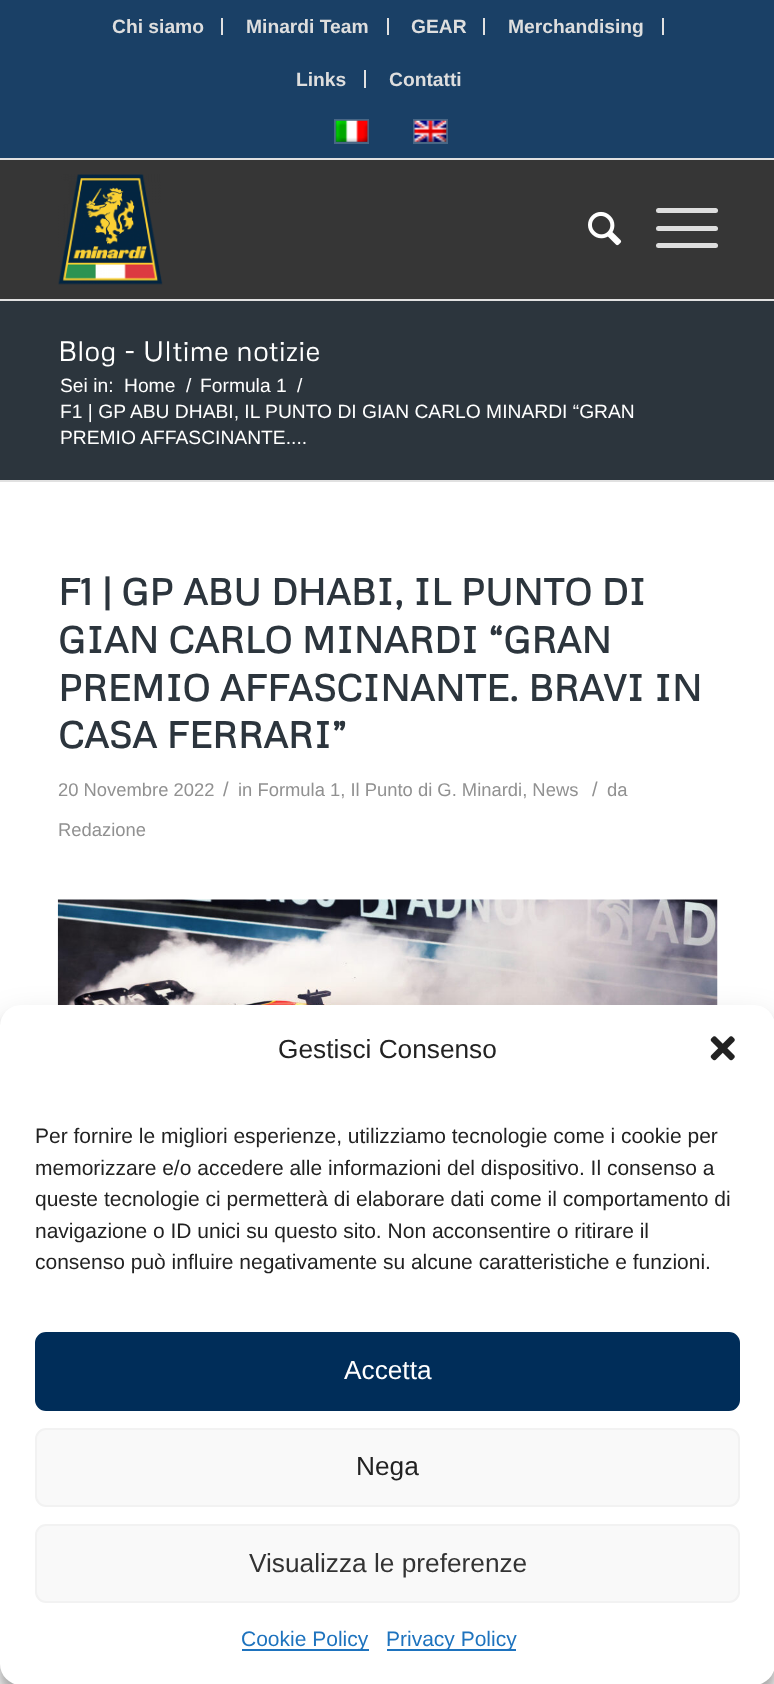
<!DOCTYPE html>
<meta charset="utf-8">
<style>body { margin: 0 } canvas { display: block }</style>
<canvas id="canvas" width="774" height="1684"></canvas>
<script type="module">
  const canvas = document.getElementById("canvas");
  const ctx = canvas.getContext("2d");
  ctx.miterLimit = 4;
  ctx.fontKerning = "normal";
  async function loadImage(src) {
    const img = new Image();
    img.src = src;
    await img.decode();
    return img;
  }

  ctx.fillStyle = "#2c353d";
  ctx.fillRect(0, 0, 774, 1684);
  ctx.fillStyle = "#1a4066";
  ctx.fillRect(0, 0, 774, 158);
  ctx.fillStyle = "#e1e1e1";
  ctx.fillRect(0, 158, 774, 2);
  ctx.fillRect(221, 18, 2, 17);
  ctx.font = "bold 19.25px Liberation Sans";
  ctx.fillStyle = "#dedede";
  ctx.fillText("Chi siamo", 112, 33);
  ctx.fillStyle = "#e1e1e1";
  ctx.fillRect(387, 18, 2, 17);
  ctx.fillStyle = "#dedede";
  ctx.fillText("Minardi Team", 246, 33);
  ctx.fillStyle = "#e1e1e1";
  ctx.fillRect(483, 18, 2, 17);
  ctx.fillStyle = "#dedede";
  ctx.fillText("GEAR", 411, 33);
  ctx.fillStyle = "#e1e1e1";
  ctx.fillRect(662, 18, 2, 17);
  ctx.fillStyle = "#dedede";
  ctx.fillText("Merchandising", 508, 33);
  ctx.fillStyle = "#e1e1e1";
  ctx.fillRect(364, 70, 2, 18);
  ctx.fillStyle = "#dedede";
  ctx.fillText("Links", 296, 86);
  ctx.fillText("Contatti", 389, 86);
  ctx.strokeStyle = "#486685";
  ctx.lineWidth = 2;
  ctx.strokeRect(335, 120, 33, 23);
  ctx.drawImage(await loadImage("img1.png"), 335, 120, 34, 22);
  ctx.strokeRect(414, 120, 33, 23);
  ctx.drawImage(await loadImage("img2.png"), 414, 120, 33, 22);
  ctx.fillStyle = "#363636";
  ctx.fillRect(0, 160, 774, 139);
  ctx.fillStyle = "#e1e1e1";
  ctx.fillRect(0, 299, 774, 2);
  ctx.drawImage(await loadImage("img3.png"), 58, 174, 105, 111);
  ctx.drawImage(await loadImage("img4.png"), 588, 211, 34, 35);
  ctx.fillStyle = "#dedede";
  ctx.beginPath();
  ctx.roundRect(656, 226, 62, 5, 2.5);
  ctx.fill();
  ctx.beginPath();
  ctx.roundRect(656, 208, 62, 5, 2.5);
  ctx.fill();
  ctx.beginPath();
  ctx.roundRect(656, 243, 62, 5, 2.5);
  ctx.fill();
  ctx.font = "28px Metrophobic";
  ctx.fillStyle = "#ffffff";
  ctx.fillText("Blog - Ultime notizie", 58, 361);
  ctx.font = "19.25px Liberation Sans";
  ctx.fillText("Sei in:", 60, 392);
  ctx.fillText("Home", 124, 392);
  ctx.fillText("/", 186, 392);
  ctx.fillText("Formula 1", 200, 392);
  ctx.fillText("/", 297, 392);
  ctx.fillText("F1 | GP ABU DHABI, IL PUNTO DI GIAN CARLO MINARDI “GRAN", 60, 418);
  ctx.fillText("PREMIO AFFASCINANTE....", 60, 444);
  ctx.fillRect(0, 482, 774, 1202);
  ctx.fillStyle = "#e1e1e1";
  ctx.fillRect(0, 480, 774, 2);
  ctx.font = "bold 36.75px Metrophobic";
  ctx.fillStyle = "#2c353d";
  ctx.fillText("F1 | GP ABU DHABI, IL PUNTO DI", 58, 605);
  ctx.fillText("GIAN CARLO MINARDI “GRAN", 58, 653);
  ctx.fillText("PREMIO AFFASCINANTE. BRAVI IN", 58, 701);
  ctx.fillText("CASA FERRARI”", 58, 748);
  ctx.font = "18.4px Liberation Sans";
  ctx.fillStyle = "#919191";
  ctx.fillText("20 Novembre 2022", 58, 796);
  ctx.font = "20px Liberation Sans";
  ctx.fillText("/", 223, 796);
  ctx.font = "18.4px Liberation Sans";
  ctx.fillText("in Formula 1, Il Punto di G. Minardi, News", 238, 796);
  ctx.font = "20px Liberation Sans";
  ctx.fillText("/", 592, 796);
  ctx.font = "18.4px Liberation Sans";
  ctx.fillText("da", 607, 796);
  ctx.fillText("Redazione", 58, 836);
  ctx.drawImage(await loadImage("img5.png"), 57, 899, 661, 106);
  ctx.fillStyle = "rgba(0, 0, 0, 0.23)";
  ctx.filter = "blur(5px)";
  ctx.beginPath();
  ctx.roundRect(0, 1015, 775, 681, 21);
  ctx.fill();
  ctx.filter = "none";
  ctx.fillStyle = "rgba(0, 0, 0, 0.19)";
  ctx.filter = "blur(17.5px)";
  ctx.beginPath();
  ctx.roundRect(0, 1022, 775, 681, 21);
  ctx.fill();
  ctx.filter = "none";
  ctx.fillStyle = "#ffffff";
  ctx.beginPath();
  ctx.roundRect(0, 1005, 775, 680, 21);
  ctx.fill();
  ctx.font = "26.25px Liberation Sans";
  ctx.fillStyle = "#222222";
  ctx.fillText("Gestisci Consenso", 278, 1058);
  ctx.drawImage(await loadImage("img6.png"), 710, 1036, 25, 25);
  ctx.font = "21px Liberation Sans";
  ctx.fillText("Per fornire le migliori esperienze, utilizziamo tecnologie come i cookie per", 35, 1143);
  ctx.fillText("memorizzare e/o accedere alle informazioni del dispositivo. Il consenso a", 35, 1175);
  ctx.fillText("queste tecnologie ci permetterà di elaborare dati come il comportamento di", 35, 1206);
  ctx.fillText("navigazione o ID unici su questo sito. Non acconsentire o ritirare il", 35, 1238);
  ctx.fillText("consenso può influire negativamente su alcune caratteristiche e funzioni.", 35, 1269);
  ctx.fillStyle = "#002d59";
  ctx.beginPath();
  ctx.roundRect(36, 1333, 703, 77, 10);
  ctx.fill();
  ctx.strokeStyle = "#002d59";
  ctx.stroke();
  ctx.font = "26.25px Liberation Sans";
  ctx.fillStyle = "#ffffff";
  ctx.fillText("Accetta", 344, 1379);
  ctx.fillStyle = "#f9f9f9";
  ctx.beginPath();
  ctx.roundRect(36, 1429, 703, 77, 10);
  ctx.fill();
  ctx.strokeStyle = "#f2f2f2";
  ctx.stroke();
  ctx.fillStyle = "#222222";
  ctx.fillText("Nega", 356, 1475);
  ctx.fillStyle = "#f9f9f9";
  ctx.beginPath();
  ctx.roundRect(36, 1525, 703, 77, 10);
  ctx.fill();
  ctx.stroke();
  ctx.fillStyle = "#333333";
  ctx.fillText("Visualizza le preferenze", 249, 1572);
  ctx.fillStyle = "#1e73be";
  ctx.fillRect(242, 1649, 127, 2);
  ctx.font = "21px Liberation Sans";
  ctx.fillText("Cookie Policy", 241, 1646);
  ctx.fillRect(387, 1649, 129, 2);
  ctx.fillText("Privacy Policy", 386, 1646);
</script>
